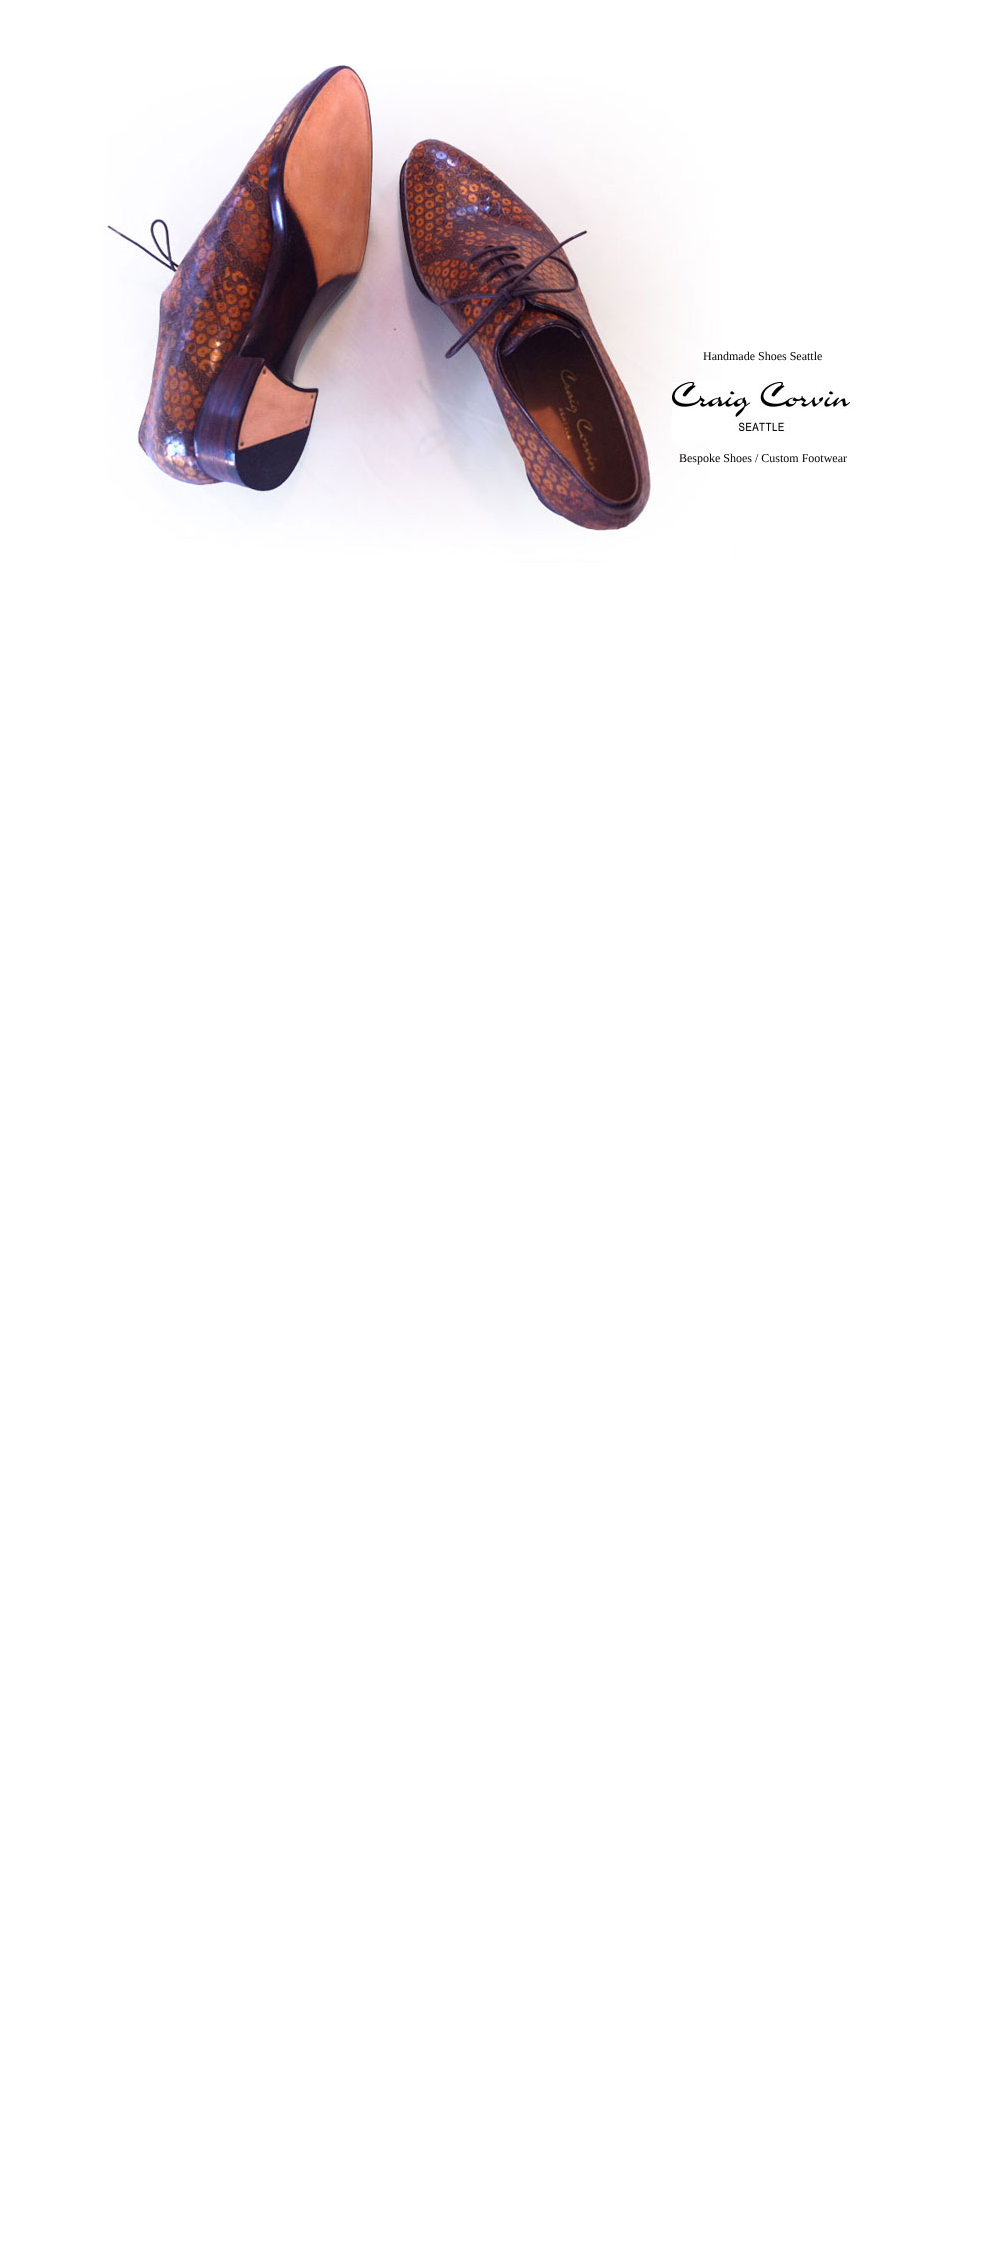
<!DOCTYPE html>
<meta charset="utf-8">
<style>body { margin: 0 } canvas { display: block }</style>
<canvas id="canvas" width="1006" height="2257"></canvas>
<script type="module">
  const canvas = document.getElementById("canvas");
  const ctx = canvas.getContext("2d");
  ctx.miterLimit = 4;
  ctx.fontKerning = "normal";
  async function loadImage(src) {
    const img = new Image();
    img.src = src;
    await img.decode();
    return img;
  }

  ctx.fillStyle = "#ffffff";
  ctx.fillRect(0, 0, 1006, 2257);
  ctx.drawImage(await loadImage("img1.png"), 103, 65, 800, 497);
  ctx.font = "12px Liberation Serif";
  ctx.fillStyle = "#000000";
  ctx.fillText("Handmade Shoes Seattle", 703, 360);
  ctx.fillText("Bespoke Shoes / Custom Footwear", 679, 462);
</script>
